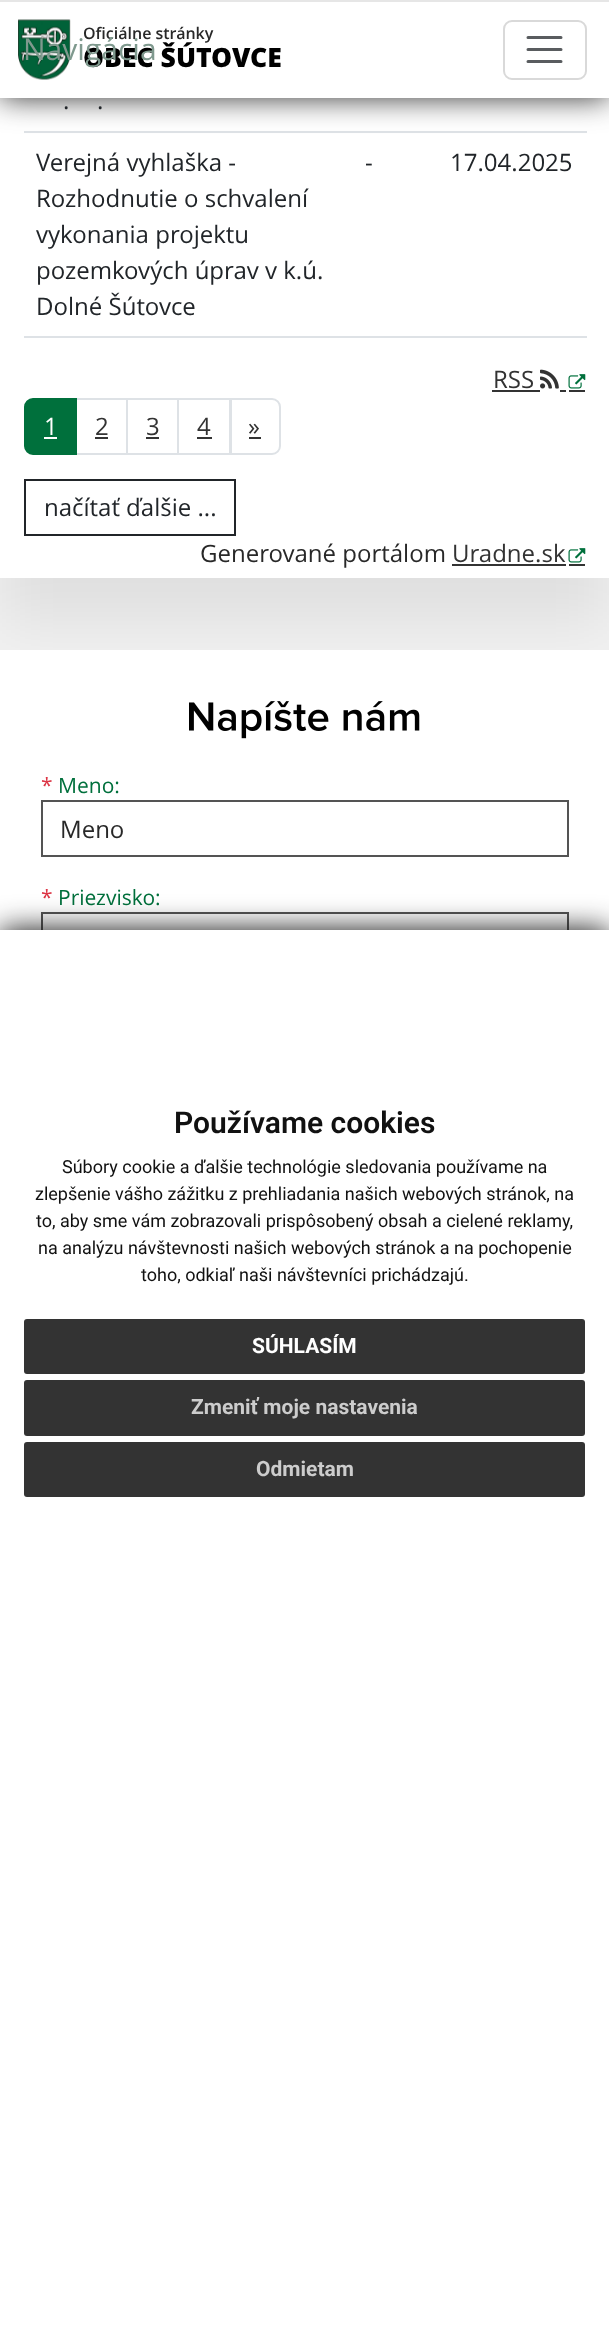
<!DOCTYPE html>
<meta charset="utf-8">
<style>body { margin: 0 } canvas { display: block }</style>
<canvas id="canvas" width="609" height="2325"></canvas>
<script type="module">
  const canvas = document.getElementById("canvas");
  const ctx = canvas.getContext("2d");
  ctx.miterLimit = 4;
  ctx.fontKerning = "normal";
  async function loadImage(src) {
    const img = new Image();
    img.src = src;
    await img.decode();
    return img;
  }

  ctx.fillStyle = "#f1f1f1";
  ctx.fillRect(0, 0, 609, 2325);
  ctx.fillStyle = "rgba(0, 0, 0, 0.07)";
  ctx.filter = "blur(30px)";
  ctx.beginPath();
  ctx.rect(0, -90, 609, 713);
  ctx.fill();
  ctx.filter = "none";
  ctx.fillStyle = "#ffffff";
  ctx.fillRect(0, 98, 609, 480);
  ctx.fillStyle = "#dee2e6";
  ctx.fillRect(24, 131, 563, 2);
  ctx.fillStyle = "#333333";
  ctx.filter = "blur(15px)";
  ctx.beginPath();
  ctx.rect(0, 0, 609, 98);
  ctx.fill();
  ctx.filter = "none";
  ctx.fillStyle = "#ffffff";
  ctx.fillRect(0, 2, 609, 96);
  ctx.fillStyle = "#e6e6e6";
  ctx.fillRect(0, 0, 609, 2);
  ctx.drawImage(await loadImage("img1.png"), 18, 19, 53, 61);
  ctx.font = "600 16px Open Sans";
  ctx.fillStyle = "#282828";
  ctx.fillText("Oficiálne stránky", 83, 39);
  ctx.font = "800 26.5px Open Sans";
  ctx.fillStyle = "#000000";
  ctx.fillText("OBEC ŠÚTOVCE", 83, 67);
  ctx.font = "30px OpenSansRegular";
  ctx.fillStyle = "#7f998e";
  ctx.fillText("Navigácia", 23, 60);
  ctx.beginPath();
  ctx.roundRect(504, 21, 82, 58, 8);
  ctx.strokeStyle = "#d9d9d9";
  ctx.lineWidth = 2;
  ctx.stroke();
  ctx.beginPath();
  ctx.moveTo(528, 37.5);
  ctx.lineTo(561, 37.5);
  ctx.moveTo(528, 49.5);
  ctx.lineTo(561, 49.5);
  ctx.moveTo(528, 61.5);
  ctx.lineTo(561, 61.5);
  ctx.strokeStyle = "#595c5f";
  ctx.lineWidth = 3;
  ctx.lineCap = "round";
  ctx.stroke();
  ctx.font = "24px OpenSansRegular";
  ctx.fillStyle = "#212529";
  ctx.fillText(".", 63, 109);
  ctx.fillText(".", 97, 109);
  ctx.fillText("Verejná vyhlaška -", 36, 171);
  ctx.fillText("Rozhodnutie o schvalení", 36, 207);
  ctx.fillText("vykonania projektu", 36, 243);
  ctx.fillText("pozemkových úprav v k.ú.", 36, 279);
  ctx.fillText("Dolné Šútovce", 36, 315);
  ctx.fillText("-", 365, 171);
  ctx.fillStyle = "#dee2e6";
  ctx.fillRect(24, 336, 563, 2);
  ctx.fillStyle = "#212529";
  ctx.fillText("17.04.2025", 450, 171);
  ctx.fillStyle = "#333333";
  ctx.fillText("RSS", 493, 388);
  ctx.fillRect(492, 390, 48, 2);
  ctx.drawImage(await loadImage("img2.png"), 540, 369, 19, 20);
  ctx.drawImage(await loadImage("img3.png"), 568, 374, 18, 15);
  ctx.fillRect(560, 390, 6, 2);
  ctx.fillRect(569, 390, 16, 2);
  ctx.strokeStyle = "#dee2e6";
  ctx.lineWidth = 2;
  ctx.strokeRect(76, 399, 51, 55);
  ctx.fillStyle = "#00703c";
  ctx.beginPath();
  ctx.roundRect(25, 399, 51, 55, [8, 0, 0, 8]);
  ctx.fill();
  ctx.strokeStyle = "#00703c";
  ctx.stroke();
  ctx.fillStyle = "#ffffff";
  ctx.fillText("1", 44, 435);
  ctx.fillRect(44, 437, 13, 2);
  ctx.fillStyle = "#333333";
  ctx.fillText("2", 95, 435);
  ctx.fillRect(95, 437, 13, 2);
  ctx.strokeStyle = "#dee2e6";
  ctx.strokeRect(127, 399, 51, 55);
  ctx.fillText("3", 146, 435);
  ctx.fillRect(146, 437, 13, 2);
  ctx.strokeRect(178, 399, 52, 55);
  ctx.fillText("4", 197, 435);
  ctx.fillRect(197, 437, 15, 2);
  ctx.fillStyle = "#ffffff";
  ctx.beginPath();
  ctx.roundRect(231, 399, 49, 55, [0, 8, 8, 0]);
  ctx.fill();
  ctx.stroke();
  ctx.fillStyle = "#333333";
  ctx.fillText("»", 248, 435);
  ctx.fillRect(249, 437, 12, 2);
  ctx.strokeStyle = "#212529";
  ctx.strokeRect(25, 480, 210, 55);
  ctx.fillStyle = "#212529";
  ctx.fillText("načítať ďalšie ...", 44, 516);
  ctx.fillStyle = "#282828";
  ctx.fillText("Generované portálom", 200, 562);
  ctx.fillStyle = "#333333";
  ctx.fillText("Uradne.sk", 452, 562);
  ctx.fillRect(452, 564, 114, 2);
  ctx.fillRect(569, 564, 16, 2);
  ctx.drawImage(await loadImage("img3.png"), 568, 548, 18, 15);
  ctx.fillStyle = "#ffffff";
  ctx.fillRect(0, 650, 609, 280);
  ctx.drawImage(await loadImage("img4.png"), 189, 701, 231, 38);
  ctx.font = "21px OpenSansRegular";
  ctx.fillStyle = "#dc3545";
  ctx.fillText("*", 41, 793);
  ctx.fillStyle = "#00703c";
  ctx.fillText("Meno:", 58, 793);
  ctx.strokeStyle = "#545454";
  ctx.strokeRect(42, 801, 526, 55);
  ctx.font = "24px OpenSansRegular";
  ctx.fillStyle = "#282828";
  ctx.fillText("Meno", 60, 838);
  ctx.font = "21px OpenSansRegular";
  ctx.fillStyle = "#dc3545";
  ctx.fillText("*", 41, 905);
  ctx.fillStyle = "#00703c";
  ctx.fillText("Priezvisko:", 58, 905);
  ctx.strokeRect(42, 913, 526, 55);
  ctx.fillStyle = "#111111";
  ctx.filter = "blur(15px)";
  ctx.beginPath();
  ctx.rect(0, 930, 609, 1395);
  ctx.fill();
  ctx.filter = "none";
  ctx.fillStyle = "#ffffff";
  ctx.fillRect(0, 930, 609, 1395);
  ctx.font = "600 30px Roboto";
  ctx.fillStyle = "#111111";
  ctx.fillText("Používame cookies", 174, 1133);
  ctx.font = "18px Roboto";
  ctx.fillText("Súbory cookie a ďalšie technológie sledovania používame na", 62, 1173);
  ctx.fillText("zlepšenie vášho zážitku z prehliadania našich webových stránok, na", 35, 1200);
  ctx.fillText("to, aby sme vám zobrazovali prispôsobený obsah a cielené reklamy,", 36, 1227);
  ctx.fillText("na analýzu návštevnosti našich webových stránok a na pochopenie", 38, 1254);
  ctx.fillText("toho, odkiaľ naši návštevníci prichádzajú.", 141, 1281);
  ctx.fillStyle = "#333333";
  ctx.beginPath();
  ctx.roundRect(24, 1319, 561, 55, 3);
  ctx.fill();
  ctx.font = "bold 21px Roboto";
  ctx.fillStyle = "#ffffff";
  ctx.fillText("SÚHLASÍM", 252, 1353);
  ctx.fillStyle = "#333333";
  ctx.beginPath();
  ctx.roundRect(24, 1380, 561, 56, 3);
  ctx.fill();
  ctx.fillStyle = "#cccccc";
  ctx.fillText("Zmeniť moje nastavenia", 191, 1414);
  ctx.fillStyle = "#333333";
  ctx.beginPath();
  ctx.roundRect(24, 1442, 561, 55, 3);
  ctx.fill();
  ctx.fillStyle = "#cccccc";
  ctx.fillText("Odmietam", 256, 1476);
</script>
